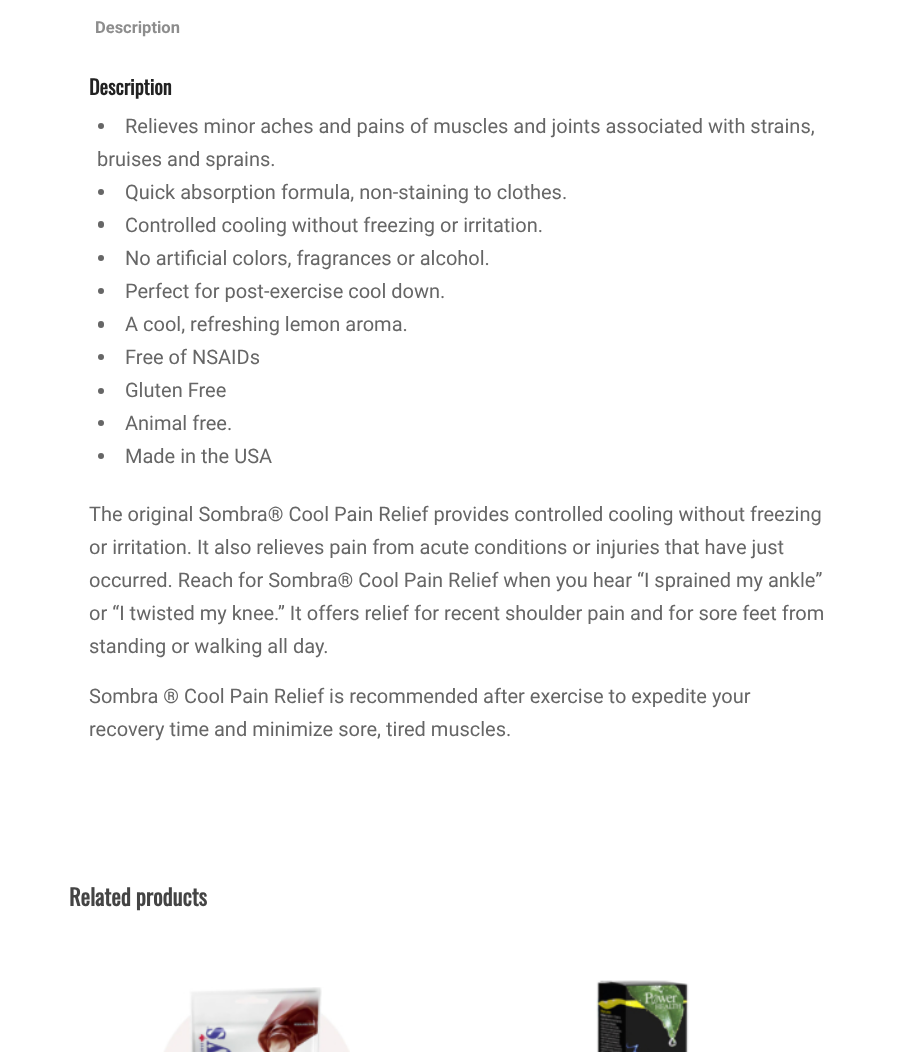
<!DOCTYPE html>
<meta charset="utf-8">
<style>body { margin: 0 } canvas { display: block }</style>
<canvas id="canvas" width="916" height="1052"></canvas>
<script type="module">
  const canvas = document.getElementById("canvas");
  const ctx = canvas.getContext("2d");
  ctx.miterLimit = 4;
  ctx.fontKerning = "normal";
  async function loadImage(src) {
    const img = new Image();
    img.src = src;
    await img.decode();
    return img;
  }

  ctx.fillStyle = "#ffffff";
  ctx.fillRect(0, 0, 916, 1052);
  ctx.font = "bold 16.5px Roboto";
  ctx.fillStyle = "#8d8d8d";
  ctx.fillText("Description", 95, 33);
  ctx.font = "bold 20px Oswald";
  ctx.fillStyle = "#222222";
  ctx.fillText("Description", 89, 95);
  ctx.fillStyle = "#666666";
  ctx.beginPath();
  ctx.arc(101, 126, 3, 0, Math.PI * 2);
  ctx.fill();
  ctx.font = "20px Roboto";
  ctx.fillText("Relieves minor aches and pains of muscles and joints associated with strains,", 125, 133);
  ctx.fillText("bruises and sprains.", 97, 166);
  ctx.beginPath();
  ctx.arc(101, 192, 3, 0, Math.PI * 2);
  ctx.fill();
  ctx.fillText("Quick absorption formula, non-staining to clothes.", 125, 199);
  ctx.beginPath();
  ctx.roundRect(98, 221, 6, 7, 3);
  ctx.fill();
  ctx.fillText("Controlled cooling without freezing or irritation.", 125, 232);
  ctx.beginPath();
  ctx.arc(101, 258, 3, 0, Math.PI * 2);
  ctx.fill();
  ctx.fillText("No artificial colors, fragrances or alcohol.", 125, 265);
  ctx.beginPath();
  ctx.arc(101, 291, 3, 0, Math.PI * 2);
  ctx.fill();
  ctx.fillText("Perfect for post-exercise cool down.", 125, 298);
  ctx.beginPath();
  ctx.roundRect(98, 321, 6, 7, 3);
  ctx.fill();
  ctx.fillText("A cool, refreshing lemon aroma.", 125, 331);
  ctx.beginPath();
  ctx.arc(101, 357, 3, 0, Math.PI * 2);
  ctx.fill();
  ctx.fillText("Free of NSAIDs", 125, 364);
  ctx.beginPath();
  ctx.arc(101, 391, 3, 0, Math.PI * 2);
  ctx.fill();
  ctx.fillText("Gluten Free", 125, 397);
  ctx.beginPath();
  ctx.arc(101, 423, 3, 0, Math.PI * 2);
  ctx.fill();
  ctx.fillText("Animal free.", 125, 430);
  ctx.beginPath();
  ctx.arc(101, 456, 3, 0, Math.PI * 2);
  ctx.fill();
  ctx.fillText("Made in the USA", 125, 463);
  ctx.fillText("The original Sombra® Cool Pain Relief provides controlled cooling without freezing", 89, 521);
  ctx.fillText("or irritation. It also relieves pain from acute conditions or injuries that have just", 89, 554);
  ctx.fillText("occurred. Reach for Sombra® Cool Pain Relief when you hear “I sprained my ankle”", 89, 587);
  ctx.fillText("or “I twisted my knee.” It offers relief for recent shoulder pain and for sore feet from", 89, 620);
  ctx.fillText("standing or walking all day.", 89, 653);
  ctx.fillText("Sombra ® Cool Pain Relief is recommended after exercise to expedite your", 89, 703);
  ctx.fillText("recovery time and minimize sore, tired muscles.", 89, 736);
  ctx.font = "bold 22.5px Oswald";
  ctx.fillStyle = "#444444";
  ctx.fillText("Related products", 69, 906);
  ctx.drawImage(await loadImage("img1.png"), 163, 987, 187, 65);
  ctx.drawImage(await loadImage("img2.png"), 596, 980, 94, 72);
</script>
